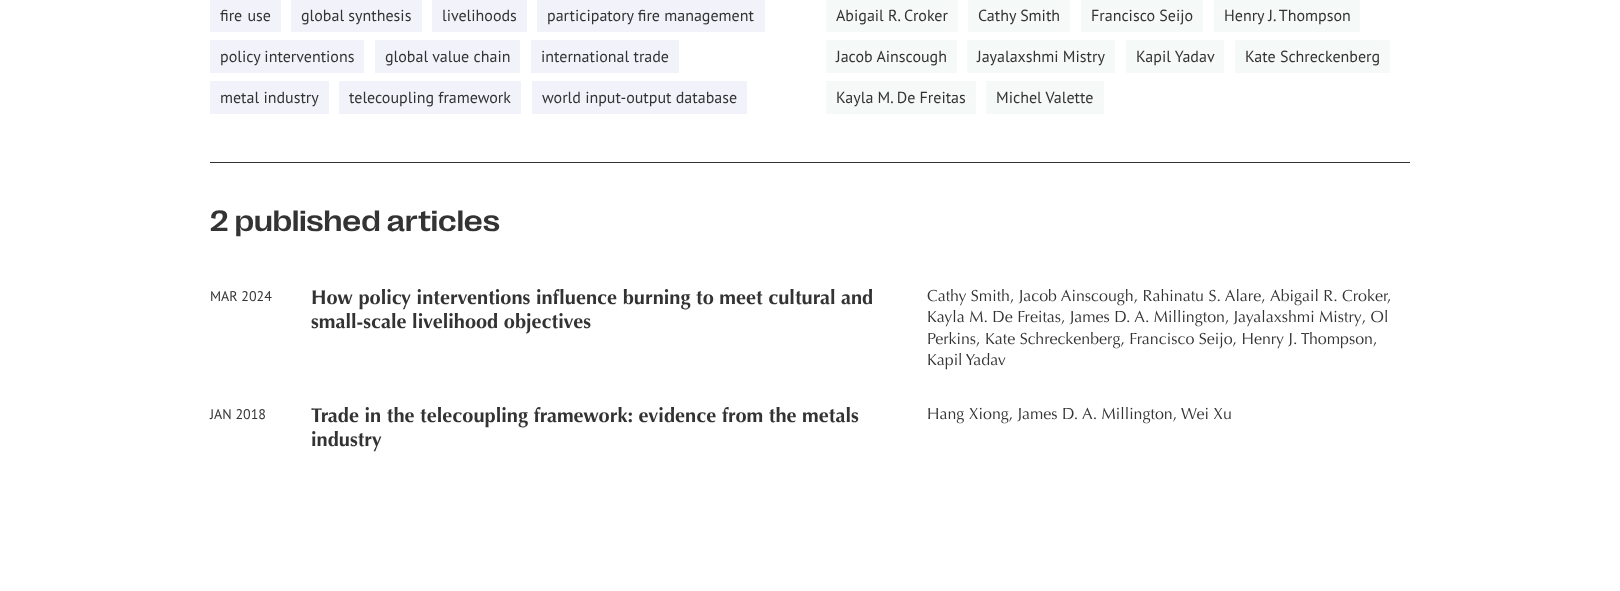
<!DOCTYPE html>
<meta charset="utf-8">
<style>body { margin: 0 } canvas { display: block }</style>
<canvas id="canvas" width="1620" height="591"></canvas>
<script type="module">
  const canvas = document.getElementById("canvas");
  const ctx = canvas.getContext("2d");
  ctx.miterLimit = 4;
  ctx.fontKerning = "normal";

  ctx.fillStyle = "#ffffff";
  ctx.fillRect(0, 0, 1620, 591);
  ctx.fillStyle = "#f2f2fb";
  ctx.fillRect(210, 0, 71, 32);
  ctx.wordSpacing = "1px";
  ctx.font = "16px PT Sans";
  ctx.fillStyle = "#333333";
  ctx.fillText("fire use", 220, 21);
  ctx.fillStyle = "#f2f2fb";
  ctx.fillRect(291, 0, 131, 32);
  ctx.wordSpacing = "0px";
  ctx.fillStyle = "#333333";
  ctx.fillText("global synthesis", 301, 21);
  ctx.fillStyle = "#f2f2fb";
  ctx.fillRect(432, 0, 95, 32);
  ctx.fillStyle = "#333333";
  ctx.fillText("livelihoods", 442, 21);
  ctx.fillStyle = "#f2f2fb";
  ctx.fillRect(537, 0, 228, 32);
  ctx.fillStyle = "#333333";
  ctx.fillText("participatory fire management", 547, 21);
  ctx.fillStyle = "#f2f2fb";
  ctx.fillRect(210, 40, 154, 33);
  ctx.fillStyle = "#333333";
  ctx.fillText("policy interventions", 220, 62);
  ctx.fillStyle = "#f2f2fb";
  ctx.fillRect(375, 40, 145, 33);
  ctx.fillStyle = "#333333";
  ctx.fillText("global value chain", 385, 62);
  ctx.fillStyle = "#f2f2fb";
  ctx.fillRect(531, 40, 148, 33);
  ctx.fillStyle = "#333333";
  ctx.fillText("international trade", 541, 62);
  ctx.fillStyle = "#f2f2fb";
  ctx.fillRect(210, 81, 119, 33);
  ctx.fillStyle = "#333333";
  ctx.fillText("metal industry", 220, 103);
  ctx.fillStyle = "#f2f2fb";
  ctx.fillRect(339, 81, 182, 33);
  ctx.fillStyle = "#333333";
  ctx.fillText("telecoupling framework", 349, 103);
  ctx.fillStyle = "#f2f2fb";
  ctx.fillRect(532, 81, 215, 33);
  ctx.fillStyle = "#333333";
  ctx.fillText("world input-output database", 542, 103);
  ctx.fillStyle = "#f5f9f8";
  ctx.fillRect(826, 0, 132, 32);
  ctx.fillStyle = "#333333";
  ctx.fillText("Abigail R. Croker", 836, 21);
  ctx.fillStyle = "#f5f9f8";
  ctx.fillRect(968, 0, 102, 32);
  ctx.fillStyle = "#333333";
  ctx.fillText("Cathy Smith", 978, 21);
  ctx.fillStyle = "#f5f9f8";
  ctx.fillRect(1081, 0, 122, 32);
  ctx.fillStyle = "#333333";
  ctx.fillText("Francisco Seijo", 1091, 21);
  ctx.fillStyle = "#f5f9f8";
  ctx.fillRect(1214, 0, 146, 32);
  ctx.fillStyle = "#333333";
  ctx.fillText("Henry J. Thompson", 1224, 21);
  ctx.fillStyle = "#f5f9f8";
  ctx.fillRect(826, 40, 131, 33);
  ctx.fillStyle = "#333333";
  ctx.fillText("Jacob Ainscough", 836, 62);
  ctx.fillStyle = "#f5f9f8";
  ctx.fillRect(967, 40, 148, 33);
  ctx.fillStyle = "#333333";
  ctx.fillText("Jayalaxshmi Mistry", 977, 62);
  ctx.fillStyle = "#f5f9f8";
  ctx.fillRect(1126, 40, 98, 33);
  ctx.fillStyle = "#333333";
  ctx.fillText("Kapil Yadav", 1136, 62);
  ctx.fillStyle = "#f5f9f8";
  ctx.fillRect(1235, 40, 155, 33);
  ctx.fillStyle = "#333333";
  ctx.fillText("Kate Schreckenberg", 1245, 62);
  ctx.fillStyle = "#f5f9f8";
  ctx.fillRect(826, 81, 150, 33);
  ctx.fillStyle = "#333333";
  ctx.fillText("Kayla M. De Freitas", 836, 103);
  ctx.fillStyle = "#f5f9f8";
  ctx.fillRect(986, 81, 118, 33);
  ctx.fillStyle = "#333333";
  ctx.fillText("Michel Valette", 996, 103);
  ctx.fillRect(210, 162, 1200, 1);
  ctx.font = "500 30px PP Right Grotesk";
  ctx.fillText("2 published articles", 210, 231);
  ctx.font = "14px PT Sans";
  ctx.fillText("MAR 2024", 210, 301);
  ctx.font = "bold 20px Optima";
  ctx.fillText("How policy interventions influence burning to meet cultural and", 311, 304);
  ctx.fillText("small-scale livelihood objectives", 311, 328);
  ctx.font = "16px Optima";
  ctx.fillText("Cathy Smith, Jacob Ainscough, Rahinatu S. Alare,", 927, 301);
  ctx.fillText("Abigail R. Croker,", 1270, 301);
  ctx.fillText("Kayla M. De Freitas, James D. A. Millington, Jayalaxshmi Mistry, Ol", 927, 322);
  ctx.fillText("Perkins, Kate Schreckenberg, Francisco Seijo, Henry J. Thompson,", 927, 344);
  ctx.fillText("Kapil Yadav", 927, 365);
  ctx.font = "14px PT Sans";
  ctx.fillText("JAN 2018", 210, 419);
  ctx.font = "bold 20px Optima";
  ctx.fillText("Trade in the telecoupling framework: evidence from the metals", 311, 422);
  ctx.fillText("industry", 311, 446);
  ctx.font = "16px Optima";
  ctx.fillText("Hang Xiong, James D. A. Millington,", 927, 419);
  ctx.fillText("Wei Xu", 1181, 419);
</script>
